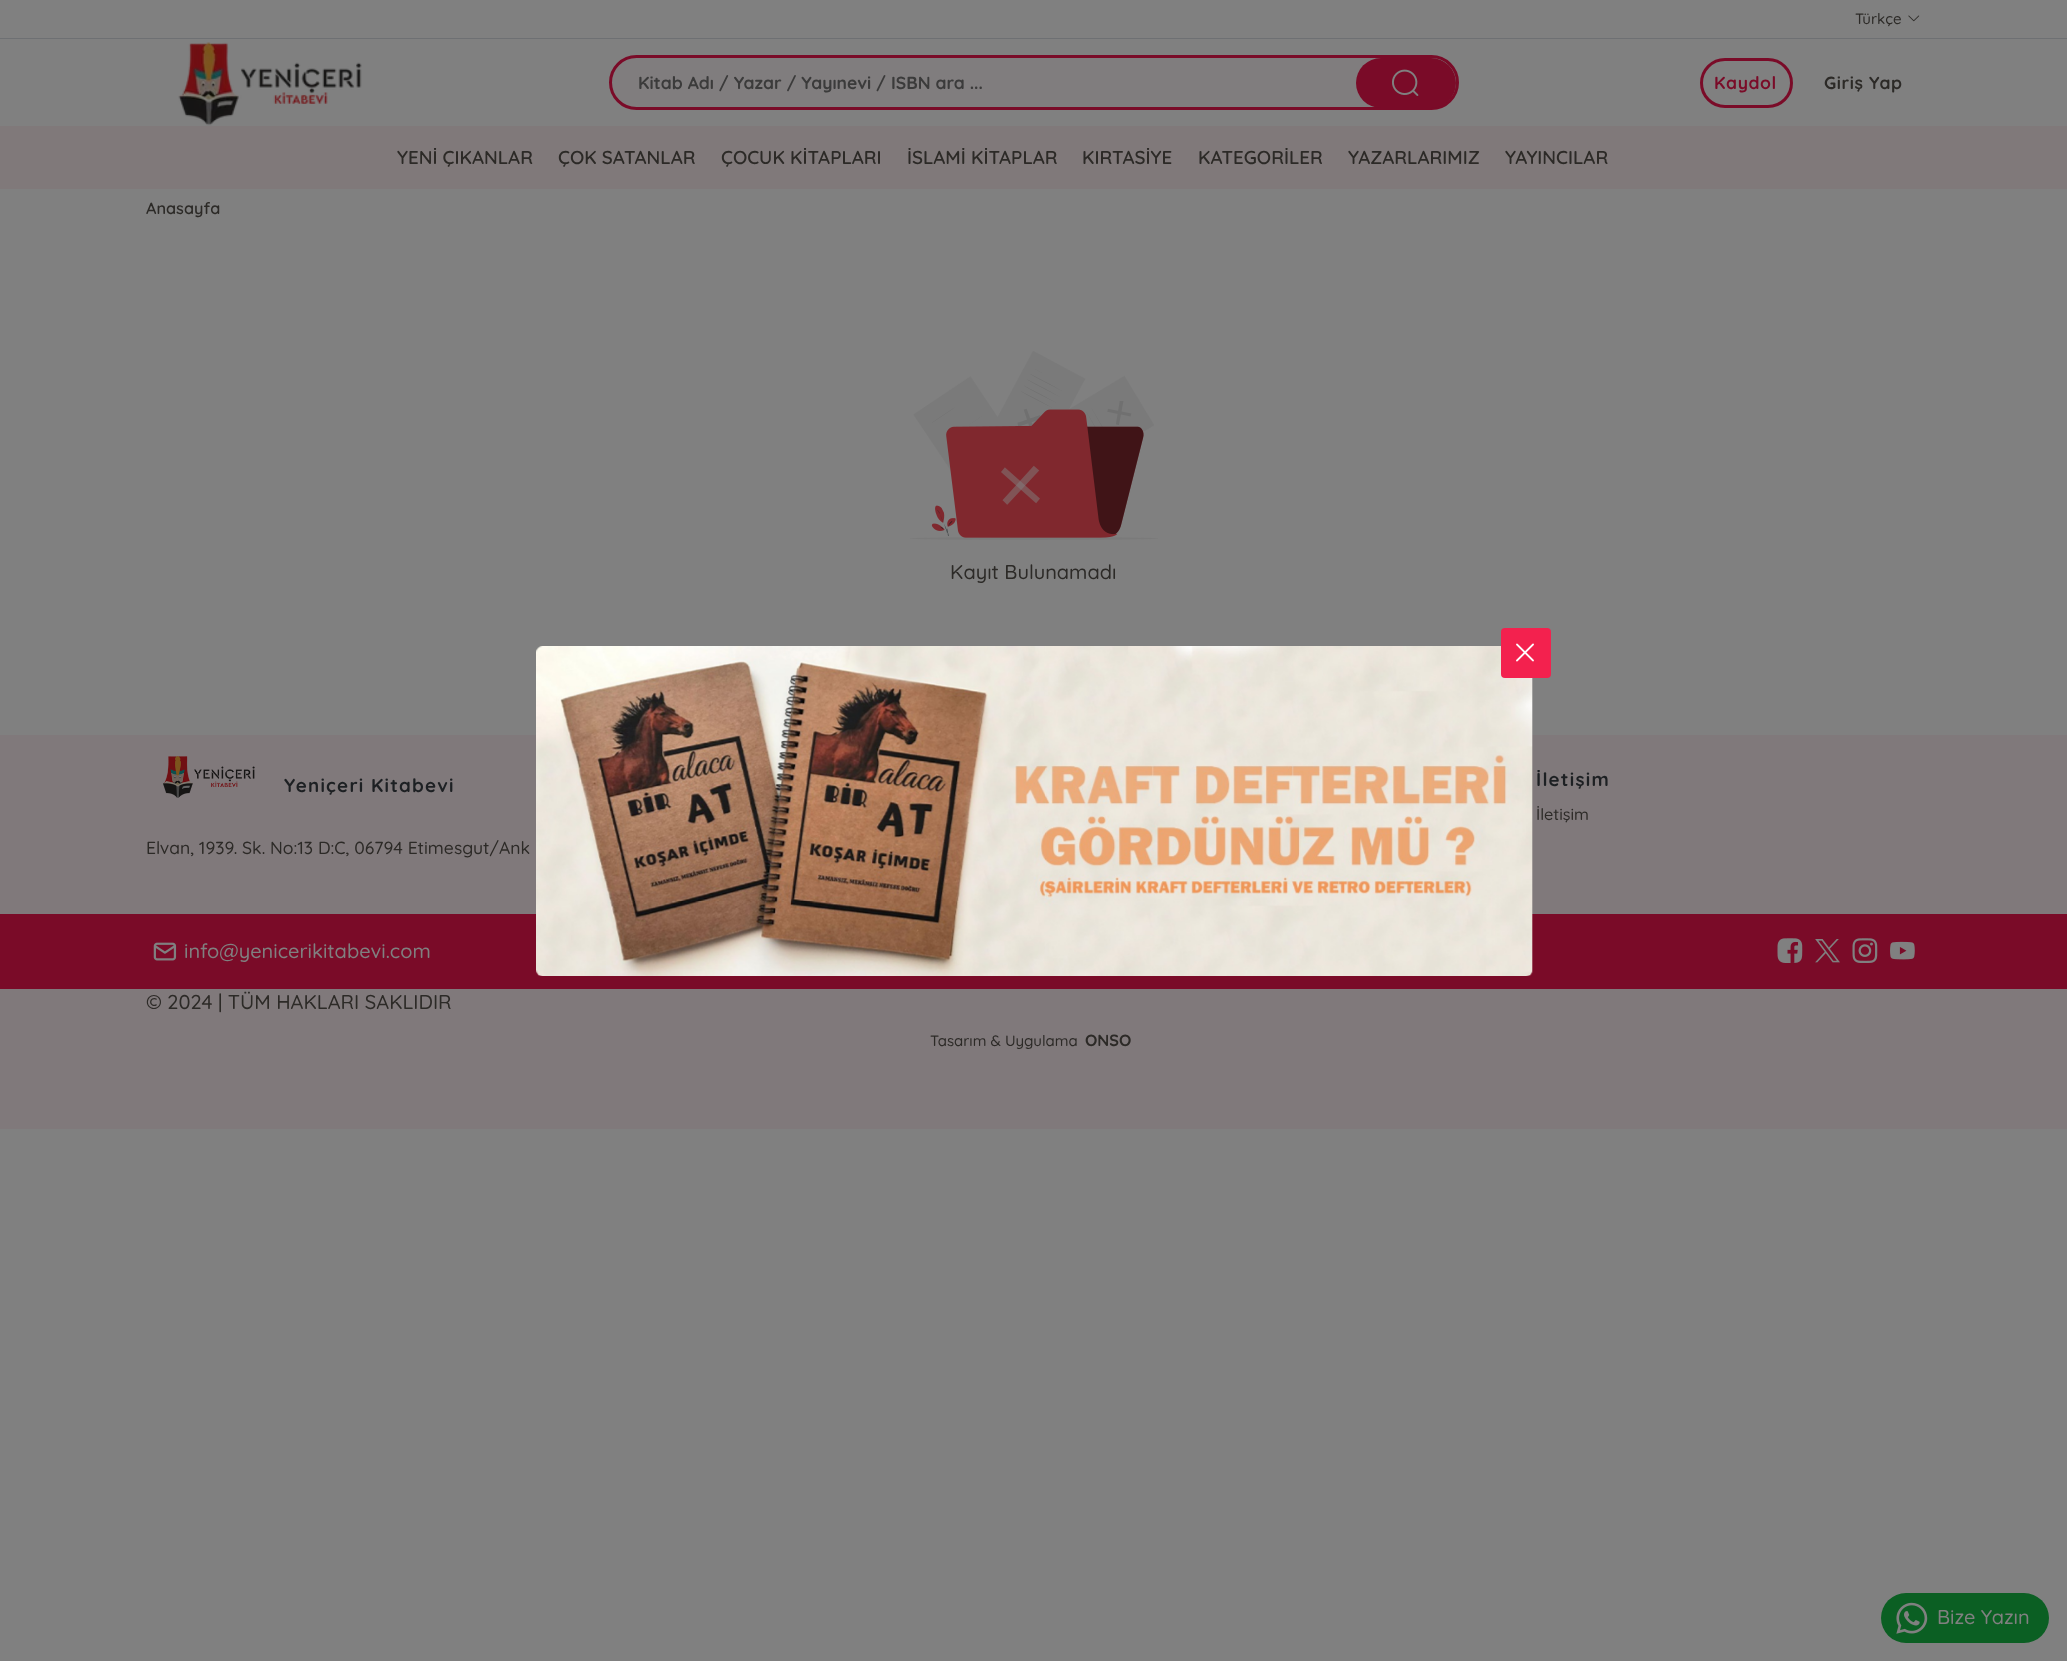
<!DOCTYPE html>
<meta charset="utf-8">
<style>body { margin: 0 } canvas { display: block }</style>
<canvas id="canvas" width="2067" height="1661"></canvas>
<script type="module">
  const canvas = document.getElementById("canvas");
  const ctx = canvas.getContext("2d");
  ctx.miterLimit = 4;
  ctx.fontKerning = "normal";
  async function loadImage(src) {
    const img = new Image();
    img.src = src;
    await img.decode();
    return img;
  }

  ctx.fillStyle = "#808080";
  ctx.fillRect(0, 0, 2067, 1661);
  ctx.fillStyle = "#6e7073";
  ctx.fillRect(0, 38, 2067, 1);
  ctx.font = "300 15px Quicksand";
  ctx.fillStyle = "#2c2a27";
  ctx.fillText("Türkçe", 1855, 24);
  ctx.drawImage(await loadImage("img1.png"), 1908, 15, 12, 7);
  ctx.drawImage(await loadImage("img2.png"), 178, 42, 184, 84);
  ctx.fillStyle = "#807d7e";
  ctx.beginPath();
  ctx.roundRect(610.5, 56.5, 847, 52, 26);
  ctx.fill();
  ctx.strokeStyle = "#7a0b28";
  ctx.lineWidth = 3;
  ctx.stroke();
  ctx.font = "300 17.5px 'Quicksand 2'";
  ctx.fillStyle = "#3b3b3b";
  ctx.fillText("Kitab Adı / Yazar / Yayınevi / ISBN ara ...", 638, 89);
  ctx.fillStyle = "#7a0b28";
  ctx.beginPath();
  ctx.roundRect(1356, 58, 100, 50, 25);
  ctx.fill();
  ctx.drawImage(await loadImage("img3.png"), 1392, 69, 27, 27);
  ctx.beginPath();
  ctx.roundRect(1701.5, 59.5, 90, 47, 23.5);
  ctx.stroke();
  ctx.letterSpacing = "0.6px";
  ctx.fillText("Kaydol", 1714, 89);
  ctx.fillStyle = "#2c2a27";
  ctx.fillText("Giriş Yap", 1824, 89);
  ctx.fillStyle = "#80797a";
  ctx.fillRect(0, 126, 2067, 63);
  ctx.letterSpacing = "0px";
  ctx.font = "600 18.75px Quicksand";
  ctx.fillStyle = "#2c2a27";
  ctx.fillText("YENİ ÇIKANLAR", 397, 164);
  ctx.fillText("ÇOK SATANLAR", 558, 164);
  ctx.fillText("ÇOCUK KİTAPLARI", 721, 164);
  ctx.fillText("İSLAMİ KİTAPLAR", 907, 164);
  ctx.fillText("KIRTASİYE", 1082, 164);
  ctx.fillText("KATEGORİLER", 1198, 164);
  ctx.fillText("YAZARLARIMIZ", 1348, 164);
  ctx.fillText("YAYINCILAR", 1505, 164);
  ctx.font = "600 16.25px Quicksand";
  ctx.fillText("Anasayfa", 146, 214);
  ctx.drawImage(await loadImage("img4.png"), 910, 351, 248, 189);
  ctx.font = "300 20px Quicksand";
  ctx.fillText("Kayıt Bulunamadı", 950, 579);
  ctx.fillStyle = "#80797b";
  ctx.fillRect(0, 735, 2067, 394);
  ctx.drawImage(await loadImage("img5.png"), 163, 756, 92, 42);
  ctx.letterSpacing = "1.25px";
  ctx.font = "300 18.75px 'Quicksand 2'";
  ctx.fillStyle = "#1d2023";
  ctx.fillText("Yeniçeri Kitabevi", 284, 792);
  ctx.letterSpacing = "0px";
  ctx.font = "300 17.5px Quicksand";
  ctx.fillStyle = "#2c2a27";
  ctx.fillText("Elvan, 1939. Sk. No:13 D:C, 06794 Etimesgut/Ank", 146, 854);
  ctx.letterSpacing = "1.25px";
  ctx.font = "300 18.75px 'Quicksand 2'";
  ctx.fillStyle = "#1d2023";
  ctx.fillText("İletişim", 1536, 786);
  ctx.letterSpacing = "0px";
  ctx.font = "300 16.25px Quicksand";
  ctx.fillStyle = "#2c2a27";
  ctx.fillText("İletişim", 1536, 820);
  ctx.fillStyle = "#7a0b28";
  ctx.fillRect(0, 914, 2067, 75);
  ctx.drawImage(await loadImage("img6.png"), 153, 942, 24, 19);
  ctx.font = "300 20px Quicksand";
  ctx.fillStyle = "#808080";
  ctx.fillText("info@yenicerikitabevi.com", 184, 958);
  ctx.drawImage(await loadImage("img7.png"), 1777, 938, 26, 25);
  ctx.drawImage(await loadImage("img8.png"), 1815, 939, 25, 24);
  ctx.drawImage(await loadImage("img9.png"), 1852, 938, 26, 25);
  ctx.drawImage(await loadImage("img10.png"), 1890, 941, 25, 19);
  ctx.fillStyle = "#2c2a27";
  ctx.fillText("© 2024 | TÜM HAKLARI SAKLIDIR", 146, 1009);
  ctx.font = "300 15px Quicksand";
  ctx.fillText("Tasarım & Uygulama", 930, 1046);
  ctx.font = "300 16.25px 'Quicksand 2'";
  ctx.fillText("ONSO", 1085, 1046);
  ctx.fillStyle = "#0b5f23";
  ctx.beginPath();
  ctx.roundRect(1881, 1593, 168, 50, 25);
  ctx.fill();
  ctx.drawImage(await loadImage("img11.png"), 1896, 1602, 32, 32);
  ctx.font = "300 20px Quicksand";
  ctx.fillStyle = "#808080";
  ctx.fillText("Bize Yazın", 1937, 1624);
  ctx.drawImage(await loadImage("img13.png"), 536, 646, 997, 330);
  ctx.fillStyle = "#f3214e";
  ctx.beginPath();
  ctx.roundRect(1501, 628, 50, 50, 4);
  ctx.fill();
  ctx.drawImage(await loadImage("img12.png"), 1516, 643, 18, 19);
</script>
